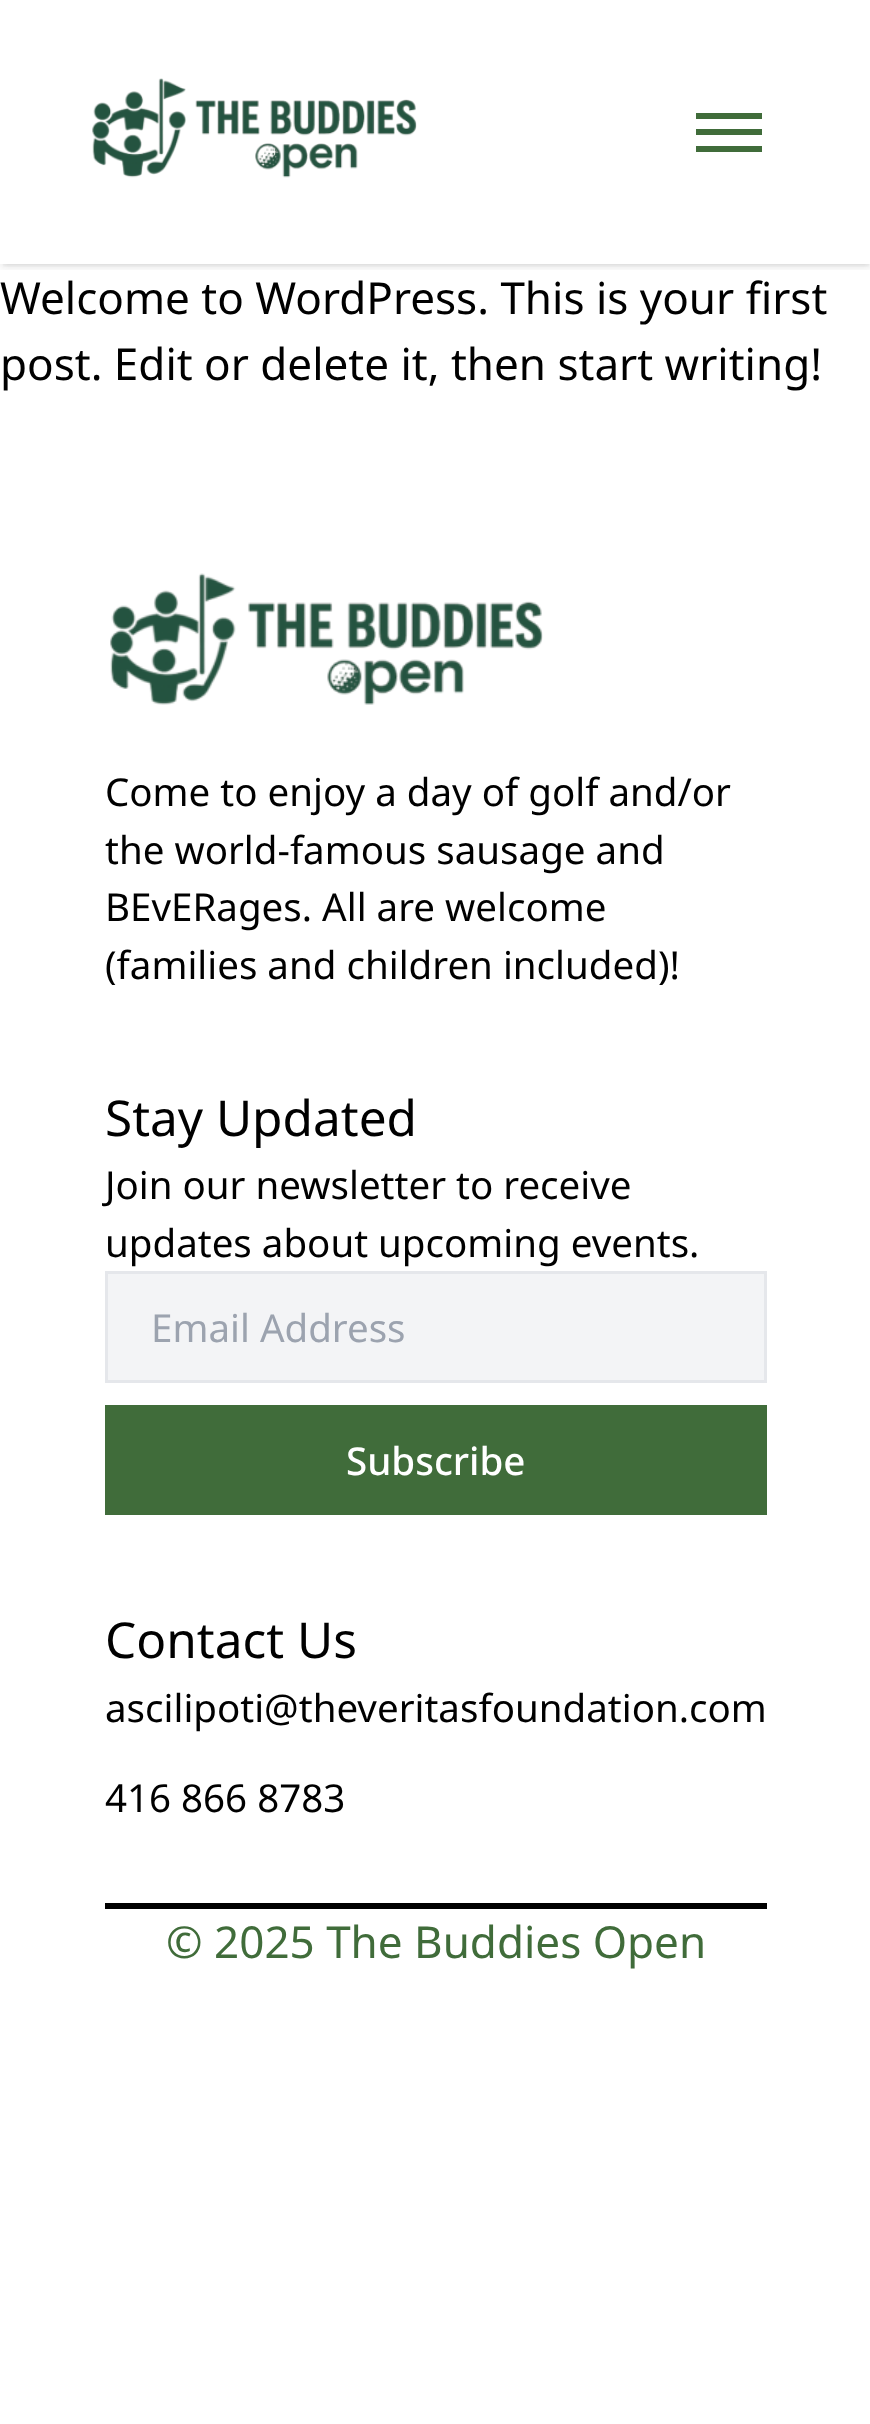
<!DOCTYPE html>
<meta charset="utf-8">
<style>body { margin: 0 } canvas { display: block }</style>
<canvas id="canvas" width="870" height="2424"></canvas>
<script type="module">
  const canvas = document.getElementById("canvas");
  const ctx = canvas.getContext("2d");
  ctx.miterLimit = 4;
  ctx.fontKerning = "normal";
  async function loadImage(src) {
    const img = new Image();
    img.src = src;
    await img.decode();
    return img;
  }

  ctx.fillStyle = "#ffffff";
  ctx.fillRect(0, 0, 870, 2424);
  ctx.save();
  ctx.beginPath();
  ctx.rect(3, 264, 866, 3);
  ctx.clip();
  ctx.fillStyle = "rgba(0, 0, 0, 0.1)";
  ctx.filter = "blur(3px)";
  ctx.beginPath();
  ctx.rect(3, 6, 866, 258);
  ctx.fill();
  ctx.filter = "none";
  ctx.restore();
  ctx.save();
  ctx.beginPath();
  ctx.rect(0, 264, 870, 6);
  ctx.clip();
  ctx.fillStyle = "rgba(0, 0, 0, 0.1)";
  ctx.filter = "blur(4px)";
  ctx.beginPath();
  ctx.rect(0, 3, 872, 264);
  ctx.fill();
  ctx.filter = "none";
  ctx.restore();
  ctx.drawImage(await loadImage("img1.png"), 92, 78, 325, 100);
  ctx.fillStyle = "#406c3a";
  ctx.fillRect(696, 113, 66, 6);
  ctx.fillRect(696, 129, 66, 6);
  ctx.fillRect(696, 146, 66, 6);
  ctx.font = "44px Noto Sans";
  ctx.fillStyle = "#000000";
  ctx.fillText("Welcome to WordPress. This is your first", 0, 314);
  ctx.fillText("post. Edit or delete it, then start writing!", 0, 380);
  ctx.drawImage(await loadImage("img2.png"), 110, 573, 433, 132);
  ctx.font = "38.5px Noto Sans";
  ctx.fillText("Come to enjoy a day of golf and/or", 105, 806);
  ctx.fillText("the world-famous sausage and", 105, 864);
  ctx.fillText("BEvERages. All are welcome", 105, 921);
  ctx.fillText("(families and children included)!", 105, 979);
  ctx.font = "49.5px Noto Sans";
  ctx.fillText("Stay Updated", 105, 1136);
  ctx.font = "38.5px Noto Sans";
  ctx.fillText("Join our newsletter to receive", 105, 1199);
  ctx.fillText("updates about upcoming events.", 105, 1257);
  ctx.fillStyle = "#f3f4f6";
  ctx.beginPath();
  ctx.rect(106.5, 1272.5, 659, 109);
  ctx.fill();
  ctx.strokeStyle = "#e5e7eb";
  ctx.lineWidth = 3;
  ctx.stroke();
  ctx.fillStyle = "#9ca3af";
  ctx.fillText("Email Address", 151, 1342);
  ctx.fillStyle = "#406c3a";
  ctx.fillRect(105, 1405, 662, 110);
  ctx.font = "500 38.5px Noto Sans";
  ctx.fillStyle = "#ffffff";
  ctx.fillText("Subscribe", 346, 1475);
  ctx.font = "49.5px Noto Sans";
  ctx.fillStyle = "#000000";
  ctx.fillText("Contact Us", 105, 1658);
  ctx.font = "38.5px Noto Sans";
  ctx.fillText("ascilipoti@theveritasfoundation.com", 105, 1722);
  ctx.fillText("416 866 8783", 105, 1812);
  ctx.fillRect(105, 1903, 662, 6);
  ctx.font = "44px Noto Sans";
  ctx.fillStyle = "#406c3a";
  ctx.fillText("© 2025 The Buddies Open", 166, 1958);
</script>
